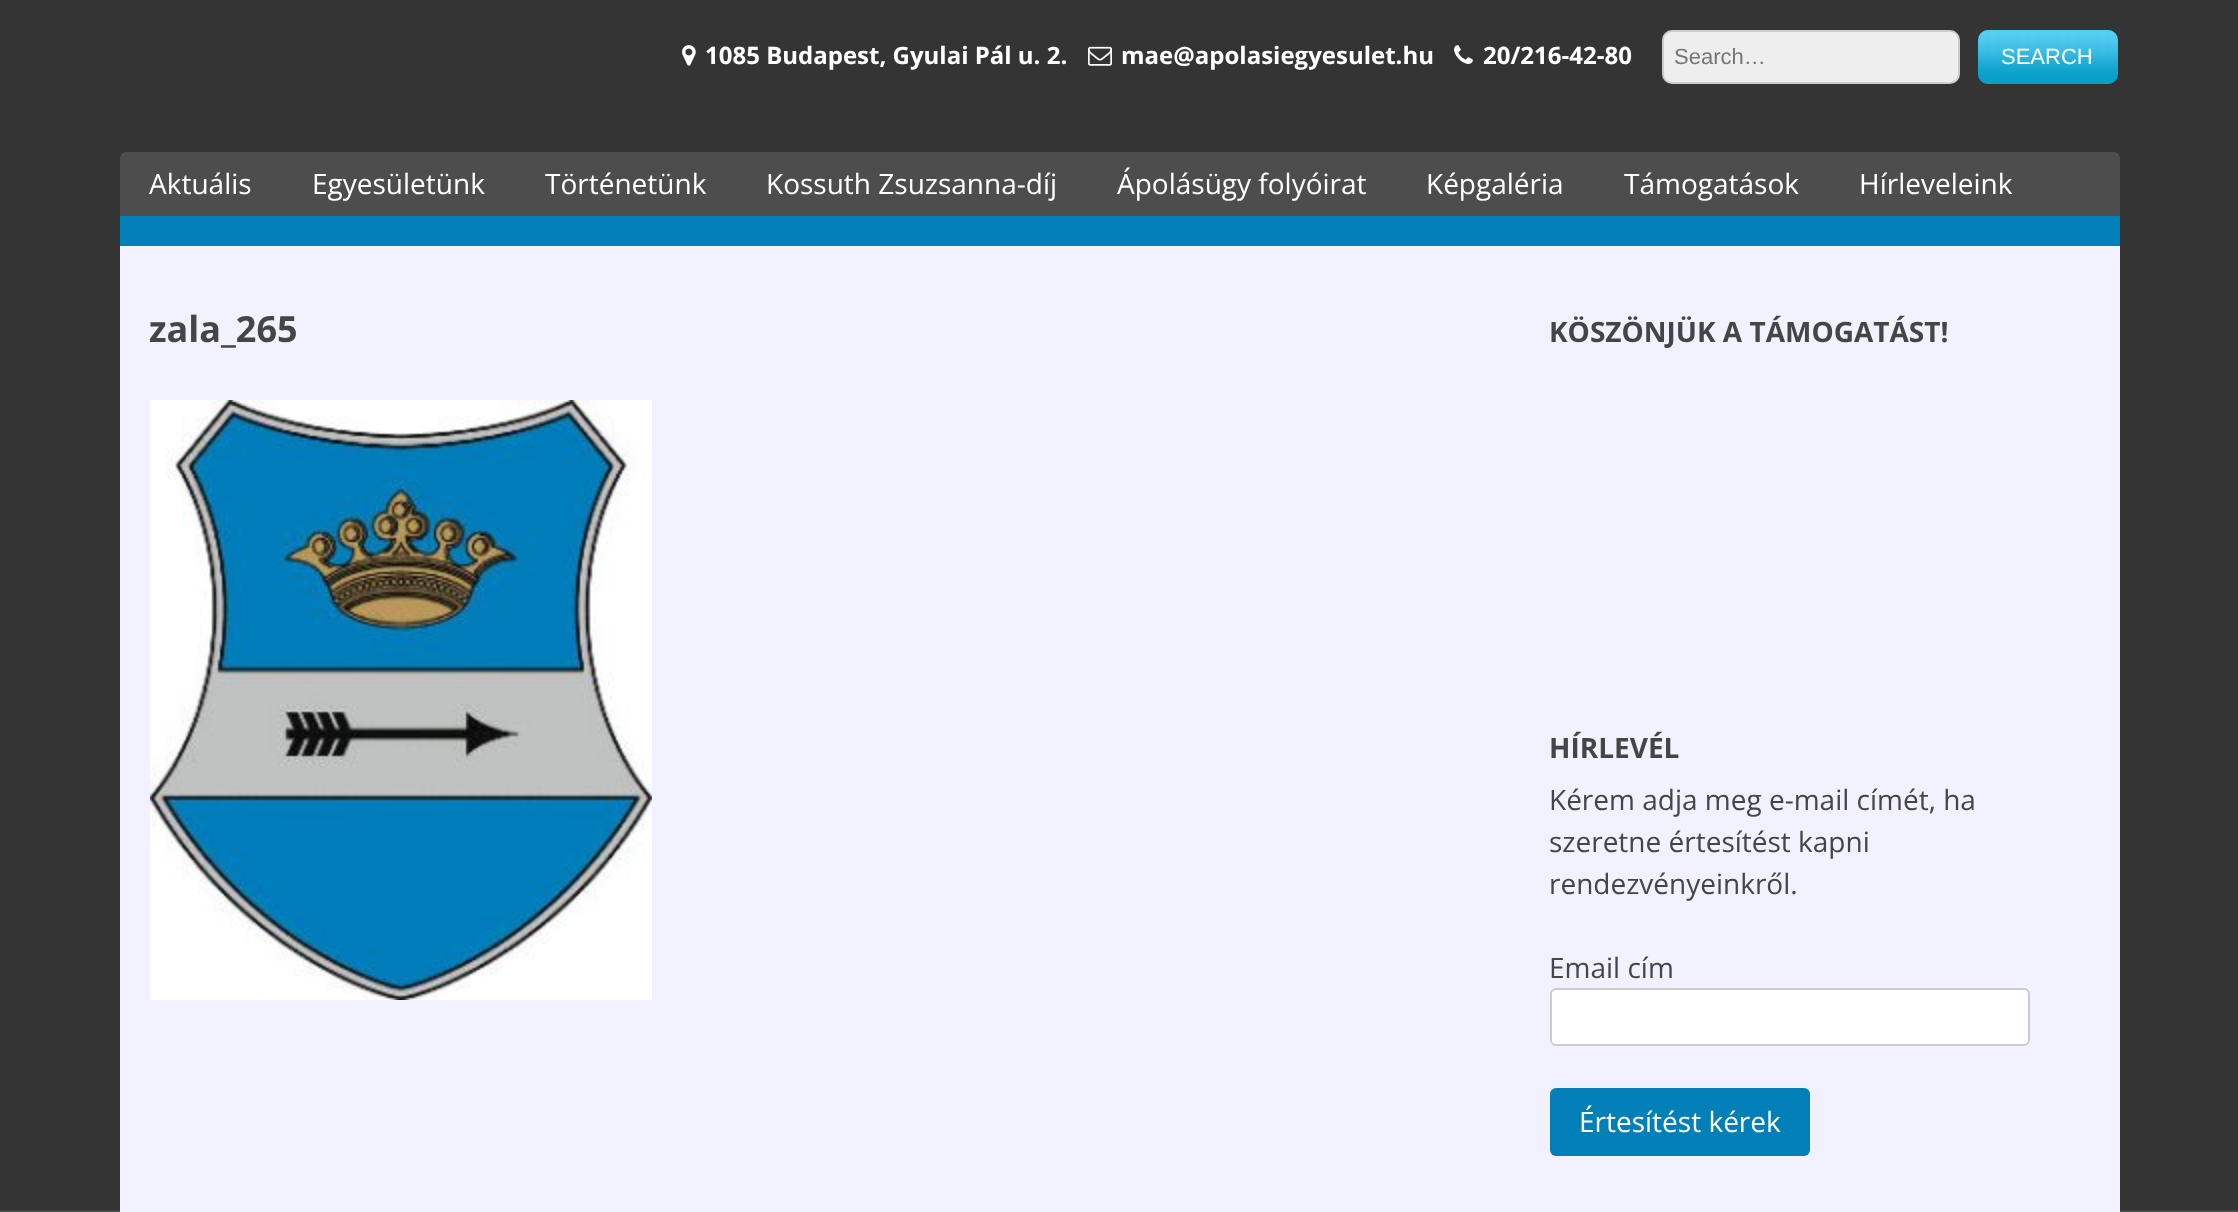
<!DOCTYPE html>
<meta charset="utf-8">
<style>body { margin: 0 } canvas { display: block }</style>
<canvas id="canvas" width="2238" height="1212"></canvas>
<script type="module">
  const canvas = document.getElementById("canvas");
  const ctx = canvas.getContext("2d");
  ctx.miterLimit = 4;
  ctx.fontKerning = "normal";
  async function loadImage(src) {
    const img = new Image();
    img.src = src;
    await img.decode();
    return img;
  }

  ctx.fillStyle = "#ffffff";
  ctx.fillRect(0, 0, 2238, 1212);
  ctx.drawImage(await loadImage("img1.png"), 0, 0, 2238, 1212);
  ctx.drawImage(await loadImage("img2.png"), 682, 45, 14, 21);
  ctx.font = "bold 24px Open Sans";
  ctx.fillText("1085 Budapest, Gyulai Pál u. 2.", 705, 64);
  ctx.drawImage(await loadImage("img3.png"), 1088, 46, 24, 20);
  ctx.fillText("mae@apolasiegyesulet.hu", 1121, 64);
  ctx.drawImage(await loadImage("img4.png"), 1454, 45, 19, 19);
  ctx.fillText("20/216-42-80", 1483, 64);
  ctx.fillStyle = "#eeeeee";
  ctx.beginPath();
  ctx.roundRect(1663, 31, 296, 52, 9);
  ctx.fill();
  ctx.strokeStyle = "#cccccc";
  ctx.lineWidth = 2;
  ctx.stroke();
  ctx.font = "22px Liberation Sans";
  ctx.fillStyle = "#757575";
  ctx.fillText("Search…", 1674, 64);
  ctx.fillStyle = "#0080b7";
  ctx.beginPath();
  ctx.roundRect(1978, 30, 140, 54, 10);
  ctx.fill();
  ctx.drawImage(await loadImage("img5.png"), 1978, 30, 140, 54);
  ctx.fillStyle = "#ffffff";
  ctx.fillText("SEARCH", 2001, 64);
  ctx.fillStyle = "#4d4d4d";
  ctx.beginPath();
  ctx.roundRect(120, 152, 2000, 94, [6, 6, 0, 0]);
  ctx.fill();
  ctx.font = "28px Open Sans";
  ctx.fillStyle = "#ffffff";
  ctx.fillText("Aktuális", 149, 194);
  ctx.fillText("Egyesületünk", 312, 194);
  ctx.fillText("Történetünk", 545, 194);
  ctx.fillText("Kossuth Zsuzsanna-díj", 766, 194);
  ctx.fillText("Ápolásügy folyóirat", 1117, 194);
  ctx.fillText("Képgaléria", 1426, 194);
  ctx.fillText("Támogatások", 1624, 194);
  ctx.fillText("Hírleveleink", 1859, 194);
  ctx.fillStyle = "#0080b7";
  ctx.fillRect(120, 216, 2000, 30);
  ctx.fillStyle = "#f2f1ff";
  ctx.fillRect(120, 246, 2000, 966);
  ctx.font = "bold 36px Open Sans";
  ctx.fillStyle = "#444545";
  ctx.fillText("zala_265", 149, 342);
  ctx.drawImage(await loadImage("img6.png"), 150, 400, 502, 600);
  ctx.font = "bold 28px Open Sans";
  ctx.fillText("KÖSZÖNJÜK A TÁMOGATÁST!", 1549, 342);
  ctx.fillText("HÍRLEVÉL", 1549, 758);
  ctx.font = "28px Open Sans";
  ctx.fillText("Kérem adja meg e-mail címét, ha", 1549, 810);
  ctx.fillText("szeretne értesítést kapni", 1549, 852);
  ctx.fillText("rendezvényeinkről.", 1549, 894);
  ctx.fillText("Email cím", 1549, 978);
  ctx.fillStyle = "#ffffff";
  ctx.beginPath();
  ctx.roundRect(1551, 989, 478, 56, 5);
  ctx.fill();
  ctx.stroke();
  ctx.fillStyle = "#0080b7";
  ctx.beginPath();
  ctx.roundRect(1550, 1088, 260, 68, 6);
  ctx.fill();
  ctx.fillStyle = "#ffffff";
  ctx.fillText("Értesítést kérek", 1579, 1132);
</script>
